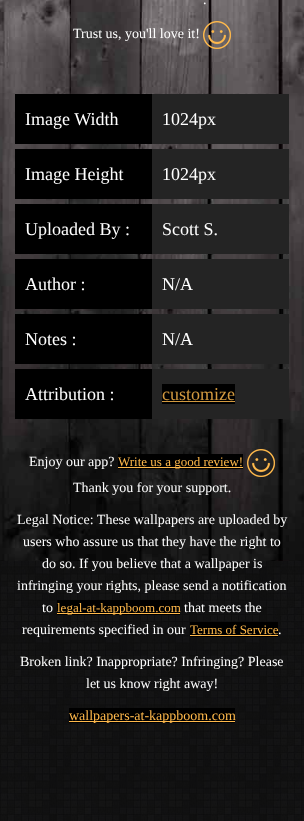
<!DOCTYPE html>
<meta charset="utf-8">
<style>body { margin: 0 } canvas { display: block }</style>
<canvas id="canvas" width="304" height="821"></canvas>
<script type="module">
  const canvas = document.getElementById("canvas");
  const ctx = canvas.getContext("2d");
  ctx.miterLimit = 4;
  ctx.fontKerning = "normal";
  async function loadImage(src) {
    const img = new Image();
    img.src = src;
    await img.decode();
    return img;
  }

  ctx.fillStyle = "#ffffff";
  ctx.fillRect(0, 0, 304, 821);
  ctx.drawImage(await loadImage("img1.png"), 0, 561, 304, 260);
  ctx.drawImage(await loadImage("img2.png"), 0, 0, 304, 561);
  ctx.font = "14px Liberation Serif";
  ctx.fillText(".", 203, 4);
  ctx.fillText("Trust us, you'll love it!", 73, 38);
  ctx.drawImage(await loadImage("img3.png"), 203, 21, 28, 28);
  ctx.fillStyle = "#242424";
  ctx.fillRect(152, 94, 137, 50);
  ctx.fillStyle = "#000000";
  ctx.fillRect(15, 94, 137, 50);
  ctx.font = "18px Liberation Serif";
  ctx.fillStyle = "#ffffff";
  ctx.fillText("Image Width", 25, 125);
  ctx.fillText("1024px", 162, 125);
  ctx.fillStyle = "#242424";
  ctx.fillRect(152, 149, 137, 50);
  ctx.fillStyle = "#000000";
  ctx.fillRect(15, 149, 137, 50);
  ctx.fillStyle = "#ffffff";
  ctx.fillText("Image Height", 25, 180);
  ctx.fillText("1024px", 162, 180);
  ctx.fillStyle = "#242424";
  ctx.fillRect(152, 204, 137, 50);
  ctx.fillStyle = "#000000";
  ctx.fillRect(15, 204, 137, 50);
  ctx.fillStyle = "#ffffff";
  ctx.fillText("Uploaded By :", 25, 235);
  ctx.fillText("Scott S.", 162, 235);
  ctx.fillStyle = "#242424";
  ctx.fillRect(152, 259, 137, 50);
  ctx.fillStyle = "#000000";
  ctx.fillRect(15, 259, 137, 50);
  ctx.fillStyle = "#ffffff";
  ctx.fillText("Author :", 25, 290);
  ctx.fillText("N/A", 162, 290);
  ctx.fillStyle = "#242424";
  ctx.fillRect(152, 314, 137, 50);
  ctx.fillStyle = "#000000";
  ctx.fillRect(15, 314, 137, 50);
  ctx.fillStyle = "#ffffff";
  ctx.fillText("Notes :", 25, 345);
  ctx.fillText("N/A", 162, 345);
  ctx.fillStyle = "#242424";
  ctx.fillRect(152, 369, 137, 50);
  ctx.fillStyle = "#000000";
  ctx.fillRect(15, 369, 137, 50);
  ctx.fillStyle = "#ffffff";
  ctx.fillText("Attribution :", 25, 400);
  ctx.fillStyle = "#000000";
  ctx.fillRect(162, 384, 73, 20);
  ctx.fillStyle = "#d39a40";
  ctx.fillText("customize", 162, 400);
  ctx.fillRect(162, 401, 73, 1);
  ctx.font = "14px Liberation Serif";
  ctx.fillStyle = "#ffffff";
  ctx.fillText("Enjoy our app?", 29, 466);
  ctx.fillStyle = "#000000";
  ctx.fillRect(118, 454, 125, 15);
  ctx.fillStyle = "#ffb94b";
  ctx.fillRect(118, 467, 125, 1);
  ctx.font = "13px Liberation Serif";
  ctx.fillText("Write us a good review!", 118, 466);
  ctx.drawImage(await loadImage("img4.png"), 247, 449, 28, 28);
  ctx.font = "14px Liberation Serif";
  ctx.fillStyle = "#ffffff";
  ctx.fillText("Thank you for your support.", 73, 492);
  ctx.fillText("Legal Notice: These wallpapers are uploaded by", 17, 524);
  ctx.fillText("users who assure us that they have the right to", 23, 546);
  ctx.fillText("do so. If you believe that a wallpaper is", 42, 568);
  ctx.fillText("infringing your rights, please send a notification", 17, 590);
  ctx.fillText("to", 42, 612);
  ctx.fillStyle = "#000000";
  ctx.fillRect(57, 600, 123, 15);
  ctx.fillStyle = "#ffb94b";
  ctx.fillRect(57, 613, 123, 1);
  ctx.font = "13px Liberation Serif";
  ctx.fillText("legal-at-kappboom.com", 57, 612);
  ctx.font = "14px Liberation Serif";
  ctx.fillStyle = "#ffffff";
  ctx.fillText("that meets the", 184, 612);
  ctx.fillText("requirements specified in our", 22, 634);
  ctx.fillStyle = "#000000";
  ctx.fillRect(190, 622, 88, 15);
  ctx.font = "13px Liberation Serif";
  ctx.fillStyle = "#ffb94b";
  ctx.fillText("Terms of Service", 190, 634);
  ctx.fillRect(190, 635, 88, 1);
  ctx.font = "14px Liberation Serif";
  ctx.fillStyle = "#ffffff";
  ctx.fillText(".", 278, 634);
  ctx.fillText("Broken link? Inappropriate? Infringing? Please", 20, 666);
  ctx.fillText("let us know right away!", 86, 688);
  ctx.fillStyle = "#000000";
  ctx.fillRect(69, 708, 166, 15);
  ctx.fillStyle = "#ffb94b";
  ctx.fillRect(69, 721, 166, 1);
  ctx.fillText("wallpapers-at-kappboom.com", 69, 720);
</script>
